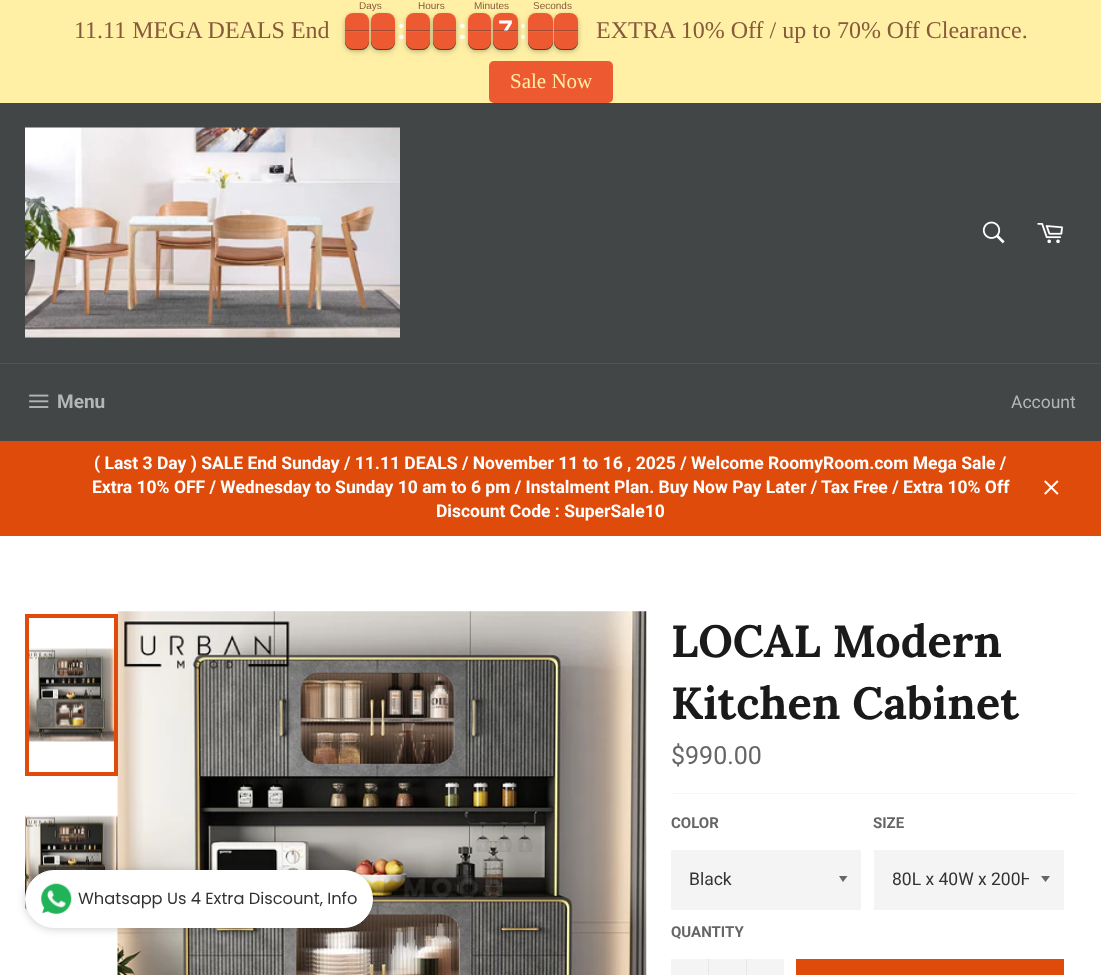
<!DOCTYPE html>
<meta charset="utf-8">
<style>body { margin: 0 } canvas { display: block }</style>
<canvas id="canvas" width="1101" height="975"></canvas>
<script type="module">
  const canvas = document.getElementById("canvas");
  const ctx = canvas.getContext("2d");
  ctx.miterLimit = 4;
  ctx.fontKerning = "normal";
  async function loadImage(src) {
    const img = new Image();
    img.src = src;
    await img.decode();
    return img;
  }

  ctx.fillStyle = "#434647";
  ctx.fillRect(0, 0, 1101, 975);
  ctx.fillStyle = "#fff0a5";
  ctx.fillRect(0, 0, 1101, 103);
  ctx.font = "24px Liberation Serif";
  ctx.fillStyle = "#875a3c";
  ctx.fillText("11.11 MEGA DEALS End", 74, 38);
  ctx.fillStyle = "rgba(0, 0, 0, 0.05)";
  ctx.filter = "blur(5px)";
  ctx.beginPath();
  ctx.roundRect(345, 16, 24, 37, 8);
  ctx.fill();
  ctx.filter = "none";
  ctx.fillStyle = "rgba(0, 0, 0, 0.24)";
  ctx.filter = "blur(2px)";
  ctx.beginPath();
  ctx.roundRect(345, 15, 24, 36, 8);
  ctx.fill();
  ctx.filter = "none";
  ctx.fillStyle = "rgba(0, 0, 0, 0.4)";
  ctx.filter = "blur(0.5px)";
  ctx.beginPath();
  ctx.roundRect(345, 33, 24, 17, 8);
  ctx.fill();
  ctx.filter = "none";
  ctx.fillStyle = "rgba(0, 0, 0, 0.05)";
  ctx.filter = "blur(5px)";
  ctx.beginPath();
  ctx.roundRect(371, 16, 24, 37, 8);
  ctx.fill();
  ctx.filter = "none";
  ctx.fillStyle = "rgba(0, 0, 0, 0.24)";
  ctx.filter = "blur(2px)";
  ctx.beginPath();
  ctx.roundRect(371, 15, 24, 36, 8);
  ctx.fill();
  ctx.filter = "none";
  ctx.fillStyle = "rgba(0, 0, 0, 0.4)";
  ctx.filter = "blur(0.5px)";
  ctx.beginPath();
  ctx.roundRect(371, 33, 24, 17, 8);
  ctx.fill();
  ctx.filter = "none";
  ctx.fillStyle = "#ed5a32";
  ctx.beginPath();
  ctx.roundRect(345, 13, 24, 18, [8, 8, 0, 0]);
  ctx.fill();
  ctx.fillStyle = "rgba(51, 51, 51, 0.4)";
  ctx.fillRect(345, 30, 24, 1);
  ctx.fillStyle = "rgba(0, 0, 0, 0.4)";
  ctx.filter = "blur(0.5px)";
  ctx.beginPath();
  ctx.roundRect(345, 33, 24, 17, 8);
  ctx.fill();
  ctx.filter = "none";
  ctx.fillStyle = "#ed5a32";
  ctx.beginPath();
  ctx.roundRect(345, 31, 24, 18, [0, 0, 8, 8]);
  ctx.fill();
  ctx.fillStyle = "rgba(204, 204, 204, 0.1)";
  ctx.fillRect(345, 31, 24, 1);
  ctx.fillStyle = "#ffffff";
  ctx.beginPath();
  ctx.roundRect(399, 24, 5, 4, 2);
  ctx.fill();
  ctx.beginPath();
  ctx.roundRect(399, 35, 5, 4, 2);
  ctx.fill();
  ctx.fillStyle = "rgba(0, 0, 0, 0.05)";
  ctx.filter = "blur(5px)";
  ctx.beginPath();
  ctx.roundRect(406, 16, 24, 37, 8);
  ctx.fill();
  ctx.filter = "none";
  ctx.fillStyle = "#ed5a32";
  ctx.beginPath();
  ctx.roundRect(371, 13, 24, 18, [8, 8, 0, 0]);
  ctx.fill();
  ctx.fillStyle = "rgba(51, 51, 51, 0.4)";
  ctx.fillRect(371, 30, 24, 1);
  ctx.fillStyle = "rgba(0, 0, 0, 0.4)";
  ctx.filter = "blur(0.5px)";
  ctx.beginPath();
  ctx.roundRect(371, 33, 24, 17, 8);
  ctx.fill();
  ctx.filter = "none";
  ctx.fillStyle = "#ed5a32";
  ctx.beginPath();
  ctx.roundRect(371, 31, 24, 18, [0, 0, 8, 8]);
  ctx.fill();
  ctx.fillStyle = "rgba(204, 204, 204, 0.1)";
  ctx.fillRect(371, 31, 24, 1);
  ctx.font = "10px Liberation Sans";
  ctx.fillStyle = "#875a3c";
  ctx.fillText("Days", 359, 9);
  ctx.fillStyle = "rgba(0, 0, 0, 0.24)";
  ctx.filter = "blur(2px)";
  ctx.beginPath();
  ctx.roundRect(406, 15, 24, 36, 8);
  ctx.fill();
  ctx.filter = "none";
  ctx.fillStyle = "rgba(0, 0, 0, 0.4)";
  ctx.filter = "blur(0.5px)";
  ctx.beginPath();
  ctx.roundRect(406, 33, 24, 17, 8);
  ctx.fill();
  ctx.filter = "none";
  ctx.fillStyle = "rgba(0, 0, 0, 0.05)";
  ctx.filter = "blur(5px)";
  ctx.beginPath();
  ctx.roundRect(433, 16, 23, 37, 8);
  ctx.fill();
  ctx.filter = "none";
  ctx.fillStyle = "rgba(0, 0, 0, 0.24)";
  ctx.filter = "blur(2px)";
  ctx.beginPath();
  ctx.roundRect(433, 15, 23, 36, 8);
  ctx.fill();
  ctx.filter = "none";
  ctx.fillStyle = "#ed5a32";
  ctx.beginPath();
  ctx.roundRect(406, 13, 24, 18, [8, 8, 0, 0]);
  ctx.fill();
  ctx.fillStyle = "rgba(51, 51, 51, 0.4)";
  ctx.fillRect(406, 30, 24, 1);
  ctx.fillStyle = "rgba(0, 0, 0, 0.4)";
  ctx.filter = "blur(0.5px)";
  ctx.beginPath();
  ctx.roundRect(406, 33, 24, 17, 8);
  ctx.fill();
  ctx.filter = "none";
  ctx.fillStyle = "#ed5a32";
  ctx.beginPath();
  ctx.roundRect(406, 31, 24, 18, [0, 0, 8, 8]);
  ctx.fill();
  ctx.fillStyle = "rgba(204, 204, 204, 0.1)";
  ctx.fillRect(406, 31, 24, 1);
  ctx.fillStyle = "rgba(0, 0, 0, 0.4)";
  ctx.filter = "blur(0.5px)";
  ctx.beginPath();
  ctx.roundRect(433, 33, 23, 17, 8);
  ctx.fill();
  ctx.filter = "none";
  ctx.fillStyle = "#ffffff";
  ctx.beginPath();
  ctx.roundRect(460, 24, 5, 4, 2);
  ctx.fill();
  ctx.beginPath();
  ctx.roundRect(460, 35, 5, 4, 2);
  ctx.fill();
  ctx.fillStyle = "#ed5a32";
  ctx.beginPath();
  ctx.roundRect(489, 61, 124, 42, 5);
  ctx.fill();
  ctx.fillStyle = "rgba(0, 0, 0, 0.05)";
  ctx.filter = "blur(5px)";
  ctx.beginPath();
  ctx.roundRect(468, 16, 23, 37, 8);
  ctx.fill();
  ctx.filter = "none";
  ctx.fillStyle = "#ed5a32";
  ctx.beginPath();
  ctx.roundRect(433, 13, 23, 18, [8, 8, 0, 0]);
  ctx.fill();
  ctx.fillStyle = "rgba(51, 51, 51, 0.4)";
  ctx.fillRect(433, 30, 23, 1);
  ctx.fillStyle = "rgba(0, 0, 0, 0.4)";
  ctx.filter = "blur(0.5px)";
  ctx.beginPath();
  ctx.roundRect(433, 33, 23, 17, 8);
  ctx.fill();
  ctx.filter = "none";
  ctx.fillStyle = "#ed5a32";
  ctx.beginPath();
  ctx.roundRect(433, 31, 23, 18, [0, 0, 8, 8]);
  ctx.fill();
  ctx.fillStyle = "rgba(204, 204, 204, 0.1)";
  ctx.fillRect(433, 31, 23, 1);
  ctx.fillStyle = "#875a3c";
  ctx.fillText("Hours", 418, 9);
  ctx.fillStyle = "rgba(0, 0, 0, 0.24)";
  ctx.filter = "blur(2px)";
  ctx.beginPath();
  ctx.roundRect(468, 15, 23, 36, 8);
  ctx.fill();
  ctx.filter = "none";
  ctx.fillStyle = "rgba(0, 0, 0, 0.4)";
  ctx.filter = "blur(0.5px)";
  ctx.beginPath();
  ctx.roundRect(468, 33, 23, 17, 8);
  ctx.fill();
  ctx.filter = "none";
  ctx.fillStyle = "rgba(0, 0, 0, 0.05)";
  ctx.filter = "blur(5px)";
  ctx.beginPath();
  ctx.roundRect(493, 16, 25, 37, 8);
  ctx.fill();
  ctx.filter = "none";
  ctx.fillStyle = "rgba(0, 0, 0, 0.24)";
  ctx.filter = "blur(2px)";
  ctx.beginPath();
  ctx.roundRect(493, 15, 25, 36, 8);
  ctx.fill();
  ctx.filter = "none";
  ctx.fillStyle = "rgba(0, 0, 0, 0.4)";
  ctx.filter = "blur(0.5px)";
  ctx.beginPath();
  ctx.roundRect(493, 33, 25, 17, 8);
  ctx.fill();
  ctx.filter = "none";
  ctx.fillStyle = "#ed5a32";
  ctx.beginPath();
  ctx.roundRect(468, 13, 23, 18, [8, 8, 0, 0]);
  ctx.fill();
  ctx.fillStyle = "rgba(51, 51, 51, 0.4)";
  ctx.fillRect(468, 30, 23, 1);
  ctx.fillStyle = "rgba(0, 0, 0, 0.4)";
  ctx.filter = "blur(0.5px)";
  ctx.beginPath();
  ctx.roundRect(468, 33, 23, 17, 8);
  ctx.fill();
  ctx.filter = "none";
  ctx.fillStyle = "#ed5a32";
  ctx.beginPath();
  ctx.roundRect(468, 31, 23, 18, [0, 0, 8, 8]);
  ctx.fill();
  ctx.fillStyle = "rgba(204, 204, 204, 0.1)";
  ctx.fillRect(468, 31, 23, 1);
  ctx.fillStyle = "#875a3c";
  ctx.fillText("Minutes", 474, 9);
  ctx.fillStyle = "#ffffff";
  ctx.beginPath();
  ctx.arc(523, 26, 2, 0, Math.PI * 2);
  ctx.fill();
  ctx.beginPath();
  ctx.arc(523, 37, 2, 0, Math.PI * 2);
  ctx.fill();
  ctx.fillStyle = "rgba(0, 0, 0, 0.05)";
  ctx.filter = "blur(5px)";
  ctx.beginPath();
  ctx.roundRect(528, 16, 25, 37, 8);
  ctx.fill();
  ctx.filter = "none";
  ctx.fillStyle = "#ed5a32";
  ctx.beginPath();
  ctx.roundRect(493, 13, 25, 18, [8, 8, 0, 0]);
  ctx.fill();
  ctx.font = "bold 27px Liberation Sans";
  ctx.fillStyle = "#ffffff";
  ctx.fillText("7", 498, 39);
  ctx.fillStyle = "rgba(51, 51, 51, 0.4)";
  ctx.fillRect(493, 30, 25, 1);
  ctx.fillStyle = "rgba(0, 0, 0, 0.4)";
  ctx.filter = "blur(0.5px)";
  ctx.beginPath();
  ctx.roundRect(493, 33, 25, 17, 8);
  ctx.fill();
  ctx.filter = "none";
  ctx.fillStyle = "#ed5a32";
  ctx.beginPath();
  ctx.roundRect(493, 31, 25, 18, [0, 0, 8, 8]);
  ctx.fill();
  ctx.fillStyle = "rgba(204, 204, 204, 0.1)";
  ctx.fillRect(493, 31, 25, 1);
  ctx.fillStyle = "rgba(0, 0, 0, 0.24)";
  ctx.filter = "blur(2px)";
  ctx.beginPath();
  ctx.roundRect(528, 15, 25, 36, 8);
  ctx.fill();
  ctx.filter = "none";
  ctx.fillStyle = "rgba(0, 0, 0, 0.4)";
  ctx.filter = "blur(0.5px)";
  ctx.beginPath();
  ctx.roundRect(528, 33, 25, 17, 8);
  ctx.fill();
  ctx.filter = "none";
  ctx.fillStyle = "rgba(0, 0, 0, 0.05)";
  ctx.filter = "blur(5px)";
  ctx.beginPath();
  ctx.roundRect(554, 16, 24, 37, 8);
  ctx.fill();
  ctx.filter = "none";
  ctx.fillStyle = "rgba(0, 0, 0, 0.24)";
  ctx.filter = "blur(2px)";
  ctx.beginPath();
  ctx.roundRect(554, 15, 24, 36, 8);
  ctx.fill();
  ctx.filter = "none";
  ctx.fillStyle = "rgba(0, 0, 0, 0.4)";
  ctx.filter = "blur(0.5px)";
  ctx.beginPath();
  ctx.roundRect(554, 33, 24, 17, 8);
  ctx.fill();
  ctx.filter = "none";
  ctx.fillStyle = "#ed5a32";
  ctx.beginPath();
  ctx.roundRect(528, 13, 25, 18, [8, 8, 0, 0]);
  ctx.fill();
  ctx.fillStyle = "rgba(51, 51, 51, 0.4)";
  ctx.fillRect(528, 30, 25, 1);
  ctx.fillStyle = "rgba(0, 0, 0, 0.4)";
  ctx.filter = "blur(0.5px)";
  ctx.beginPath();
  ctx.roundRect(528, 33, 25, 17, 8);
  ctx.fill();
  ctx.filter = "none";
  ctx.fillStyle = "#ed5a32";
  ctx.beginPath();
  ctx.roundRect(528, 31, 25, 18, [0, 0, 8, 8]);
  ctx.fill();
  ctx.fillStyle = "rgba(204, 204, 204, 0.1)";
  ctx.fillRect(528, 31, 25, 1);
  ctx.fillStyle = "#ed5a32";
  ctx.beginPath();
  ctx.roundRect(554, 13, 24, 18, [8, 8, 0, 0]);
  ctx.fill();
  ctx.fillStyle = "rgba(51, 51, 51, 0.4)";
  ctx.fillRect(554, 30, 24, 1);
  ctx.fillStyle = "rgba(0, 0, 0, 0.4)";
  ctx.filter = "blur(0.5px)";
  ctx.beginPath();
  ctx.roundRect(554, 33, 24, 17, 8);
  ctx.fill();
  ctx.filter = "none";
  ctx.fillStyle = "#ed5a32";
  ctx.beginPath();
  ctx.roundRect(554, 31, 24, 18, [0, 0, 8, 8]);
  ctx.fill();
  ctx.fillStyle = "rgba(204, 204, 204, 0.1)";
  ctx.fillRect(554, 31, 24, 1);
  ctx.font = "10px Liberation Sans";
  ctx.fillStyle = "#875a3c";
  ctx.fillText("Seconds", 533, 9);
  ctx.font = "24px Liberation Serif";
  ctx.fillText("EXTRA 10% Off / up to 70% Off Clearance.", 596, 38);
  ctx.font = "21px Liberation Serif";
  ctx.fillStyle = "#fff0a5";
  ctx.fillText("Sale Now", 510, 88);
  ctx.drawImage(await loadImage("img1.png"), 25, 127, 375, 211);
  ctx.drawImage(await loadImage("img2.png"), 982, 221, 23, 23);
  ctx.drawImage(await loadImage("img3.png"), 1037, 223, 26, 21);
  ctx.fillStyle = "#4f5354";
  ctx.fillRect(0, 363, 1101, 1);
  ctx.drawImage(await loadImage("img4.png"), 29, 394, 20, 14);
  ctx.font = "bold 19px Roboto";
  ctx.fillStyle = "#b4b5b5";
  ctx.fillText("Menu", 57, 408);
  ctx.font = "17.5px Roboto";
  ctx.fillText("Account", 1011, 408);
  ctx.fillStyle = "#df4b0a";
  ctx.fillRect(0, 441, 1101, 95);
  ctx.font = "bold 17.5px Roboto";
  ctx.fillStyle = "#ffffff";
  ctx.fillText("( Last 3 Day ) SALE End Sunday / 11.11 DEALS / November 11 to 16 , 2025 / Welcome RoomyRoom.com Mega Sale /", 94, 469);
  ctx.fillText("Extra 10% OFF / Wednesday to Sunday 10 am to 6 pm / Instalment Plan. Buy Now Pay Later / Tax Free / Extra 10% Off", 92, 493);
  ctx.fillText("Discount Code : SuperSale10", 436, 517);
  ctx.drawImage(await loadImage("img5.png"), 1044, 480, 15, 15);
  ctx.fillRect(0, 536, 1101, 439);
  ctx.drawImage(await loadImage("img9.png"), 117, 611, 530, 364);
  ctx.drawImage(await loadImage("img8.png"), 25, 815, 93, 95);
  ctx.fillStyle = "rgba(27, 27, 27, 0.2)";
  ctx.filter = "blur(4px)";
  ctx.beginPath();
  ctx.roundRect(25, 871, 348, 58, 29);
  ctx.fill();
  ctx.filter = "none";
  ctx.fillStyle = "#ffffff";
  ctx.beginPath();
  ctx.roundRect(25.5, 870.5, 347, 57, 28.5);
  ctx.fill();
  ctx.strokeStyle = "#ffffff";
  ctx.stroke();
  ctx.drawImage(await loadImage("img6.png"), 41, 883, 31, 31);
  ctx.font = "16.25px Poppins";
  ctx.fillStyle = "#333333";
  ctx.fillText("Whatsapp Us 4 Extra Discount, Info", 78, 904);
  ctx.drawImage(await loadImage("img7.png"), 29, 648, 85, 94);
  ctx.strokeStyle = "#df4b0a";
  ctx.lineWidth = 4;
  ctx.strokeRect(27, 616, 89, 158);
  ctx.font = "bold 45px Lora";
  ctx.fillStyle = "#1a1a1a";
  ctx.fillText("LOCAL Modern", 671, 657);
  ctx.fillText("Kitchen Cabinet", 671, 719);
  ctx.font = "25px Roboto";
  ctx.fillStyle = "#666666";
  ctx.fillText("$990.00", 671, 764);
  ctx.fillStyle = "#f7f7f7";
  ctx.fillRect(671, 793, 405, 1);
  ctx.font = "bold 15px Roboto";
  ctx.fillStyle = "#666666";
  ctx.fillText("COLOR", 671, 828);
  ctx.fillStyle = "#f4f4f4";
  ctx.fillRect(671, 850, 190, 60);
  ctx.fillStyle = "#666666";
  ctx.beginPath();
  ctx.moveTo(839, 876);
  ctx.lineTo(843, 882);
  ctx.lineTo(847.5, 876);
  ctx.closePath();
  ctx.fill();
  ctx.font = "17.5px Roboto";
  ctx.fillStyle = "#333333";
  ctx.fillText("Black", 689, 885);
  ctx.font = "bold 15px Roboto";
  ctx.fillStyle = "#666666";
  ctx.fillText("SIZE", 873, 828);
  ctx.fillStyle = "#f4f4f4";
  ctx.fillRect(874, 850, 190, 60);
  ctx.fillStyle = "#666666";
  ctx.beginPath();
  ctx.moveTo(1041, 876);
  ctx.lineTo(1045.5, 882);
  ctx.lineTo(1050, 876);
  ctx.closePath();
  ctx.fill();
  ctx.save();
  ctx.beginPath();
  ctx.rect(893, 868, 136, 25);
  ctx.clip();
  ctx.font = "17.5px Roboto";
  ctx.fillStyle = "#333333";
  ctx.fillText("80L x 40W x 200H", 892, 885);
  ctx.restore();
  ctx.fillText("QUANTITY", 671, 937);
  ctx.fillStyle = "#f4f4f4";
  ctx.fillRect(671, 959, 113, 16);
  ctx.fillStyle = "#e7e7e7";
  ctx.fillRect(708, 959, 1, 16);
  ctx.fillRect(746, 959, 1, 16);
  ctx.fillStyle = "#df4b0a";
  ctx.fillRect(796, 959, 268, 16);
</script>
